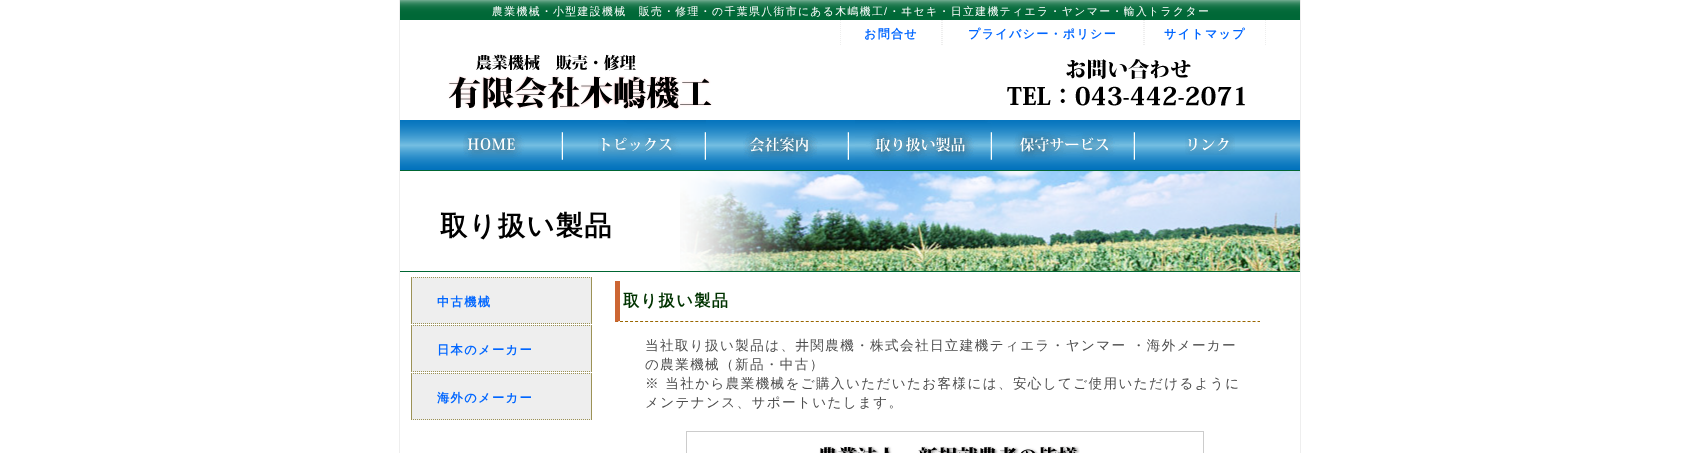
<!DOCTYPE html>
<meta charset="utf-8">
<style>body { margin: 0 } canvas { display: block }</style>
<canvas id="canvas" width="1700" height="453"></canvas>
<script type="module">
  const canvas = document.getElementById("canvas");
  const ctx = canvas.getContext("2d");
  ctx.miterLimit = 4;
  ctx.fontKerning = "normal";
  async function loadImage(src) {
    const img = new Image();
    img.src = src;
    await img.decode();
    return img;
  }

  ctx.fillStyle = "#ffffff";
  ctx.fillRect(0, 0, 1700, 453);
  ctx.fillStyle = "#eeeeee";
  ctx.fillRect(1300, 0, 1, 453);
  ctx.fillRect(399, 0, 1, 453);
  ctx.drawImage(await loadImage("img1.png"), 400, 0, 900, 20);
  ctx.letterSpacing = "1.35px";
  ctx.font = "500 10.88px WenQuanYi Zen Hei";
  ctx.fillStyle = "#ffffff";
  ctx.fillText("農業機械・小型建設機械　販売・修理・の千葉県八街市にある木嶋機工 ・ヰセキ・日立建機ティエラ・ヤンマー・輸入トラクター", 492, 15);
  ctx.font = "10.88px Liberation Sans";
  ctx.fillText("/", 884, 15);
  ctx.beginPath();
  ctx.moveTo(941.5, 20);
  ctx.lineTo(941.5, 45);
  ctx.strokeStyle = "#eeeeee";
  ctx.setLineDash([1, 1]);
  ctx.stroke();
  ctx.beginPath();
  ctx.moveTo(840.5, 20);
  ctx.lineTo(840.5, 45);
  ctx.stroke();
  ctx.font = "bold 12px WenQuanYi Zen Hei";
  ctx.fillStyle = "#0066ff";
  ctx.fillText("お問合せ", 864, 38);
  ctx.beginPath();
  ctx.moveTo(1143.5, 20);
  ctx.lineTo(1143.5, 45);
  ctx.stroke();
  ctx.beginPath();
  ctx.moveTo(942.5, 20);
  ctx.lineTo(942.5, 45);
  ctx.stroke();
  ctx.fillText("プライバシー・ポリシー", 968, 38);
  ctx.beginPath();
  ctx.moveTo(1265.5, 20);
  ctx.lineTo(1265.5, 45);
  ctx.stroke();
  ctx.beginPath();
  ctx.moveTo(1144.5, 20);
  ctx.lineTo(1144.5, 45);
  ctx.stroke();
  ctx.fillText("サイトマップ", 1164, 38);
  ctx.drawImage(await loadImage("img2.png"), 448, 54, 797, 56);
  ctx.drawImage(await loadImage("img3.png"), 400, 120, 900, 50);
  ctx.drawImage(await loadImage("img4.png"), 463, 132, 100, 28);
  ctx.drawImage(await loadImage("img5.png"), 598, 120, 108, 40);
  ctx.drawImage(await loadImage("img6.png"), 743, 131, 106, 29);
  ctx.drawImage(await loadImage("img7.png"), 855, 120, 137, 40);
  ctx.drawImage(await loadImage("img8.png"), 1013, 131, 122, 29);
  ctx.drawImage(await loadImage("img9.png"), 1185, 133, 50, 22);
  ctx.drawImage(await loadImage("img10.png"), 680, 171, 620, 100);
  ctx.fillStyle = "#006633";
  ctx.fillRect(400, 170, 900, 1);
  ctx.fillRect(400, 271, 900, 1);
  ctx.font = "bold 27.25px WenQuanYi Zen Hei";
  ctx.fillStyle = "#000000";
  ctx.fillText("取り扱い製品", 440, 235);
  ctx.fillStyle = "#eeeeee";
  ctx.fillRect(412, 277, 179, 47);
  ctx.beginPath();
  ctx.moveTo(411, 277.5);
  ctx.lineTo(592, 277.5);
  ctx.strokeStyle = "#9c9256";
  ctx.stroke();
  ctx.fillStyle = "#9c9256";
  ctx.fillRect(591, 277, 1, 47);
  ctx.beginPath();
  ctx.moveTo(411, 323.5);
  ctx.lineTo(592, 323.5);
  ctx.stroke();
  ctx.fillRect(411, 277, 1, 47);
  ctx.font = "bold 12.25px WenQuanYi Zen Hei";
  ctx.fillStyle = "#0066ff";
  ctx.fillText("中古機械", 437, 306);
  ctx.fillStyle = "#eeeeee";
  ctx.fillRect(412, 325, 179, 47);
  ctx.beginPath();
  ctx.moveTo(411, 325.5);
  ctx.lineTo(592, 325.5);
  ctx.stroke();
  ctx.fillStyle = "#9c9256";
  ctx.fillRect(591, 325, 1, 47);
  ctx.beginPath();
  ctx.moveTo(411, 371.5);
  ctx.lineTo(592, 371.5);
  ctx.stroke();
  ctx.fillRect(411, 325, 1, 47);
  ctx.fillStyle = "#0066ff";
  ctx.fillText("日本のメーカー", 437, 354);
  ctx.fillStyle = "#eeeeee";
  ctx.fillRect(412, 373, 179, 47);
  ctx.beginPath();
  ctx.moveTo(411, 373.5);
  ctx.lineTo(592, 373.5);
  ctx.stroke();
  ctx.fillStyle = "#9c9256";
  ctx.fillRect(591, 373, 1, 47);
  ctx.beginPath();
  ctx.moveTo(411, 419.5);
  ctx.lineTo(592, 419.5);
  ctx.stroke();
  ctx.fillRect(411, 373, 1, 47);
  ctx.fillStyle = "#0066ff";
  ctx.fillText("海外のメーカー", 437, 402);
  ctx.beginPath();
  ctx.moveTo(615, 321.5);
  ctx.lineTo(1260, 321.5);
  ctx.strokeStyle = "#996600";
  ctx.setLineDash([3, 2.02]);
  ctx.stroke();
  ctx.fillStyle = "#cc6633";
  ctx.beginPath();
  ctx.moveTo(615, 322);
  ctx.lineTo(615, 281);
  ctx.lineTo(620, 281);
  ctx.lineTo(620, 321);
  ctx.closePath();
  ctx.fill();
  ctx.font = "bold 16.25px WenQuanYi Zen Hei";
  ctx.fillStyle = "#003300";
  ctx.fillText("取り扱い製品", 623, 306);
  ctx.font = "500 13.6px WenQuanYi Zen Hei";
  ctx.fillStyle = "#4d4d4d";
  ctx.fillText("当社取り扱い製品は、井関農機・株式会社日立建機ティエラ・ヤンマー ・海外メーカー", 645, 350);
  ctx.fillText("の農業機械（新品・中古）", 645, 369);
  ctx.fillText("※ 当社から農業機械をご購入いただいたお客様には、安心してご使用いただけるように", 645, 388);
  ctx.fillText("メンテナンス、サポートいたします。", 645, 407);
  ctx.fillStyle = "#cccccc";
  ctx.fillRect(686, 431, 518, 22);
  ctx.fillStyle = "#ffffff";
  ctx.fillRect(687, 432, 516, 21);
  ctx.drawImage(await loadImage("img11.png"), 819, 446, 261, 7);
</script>
